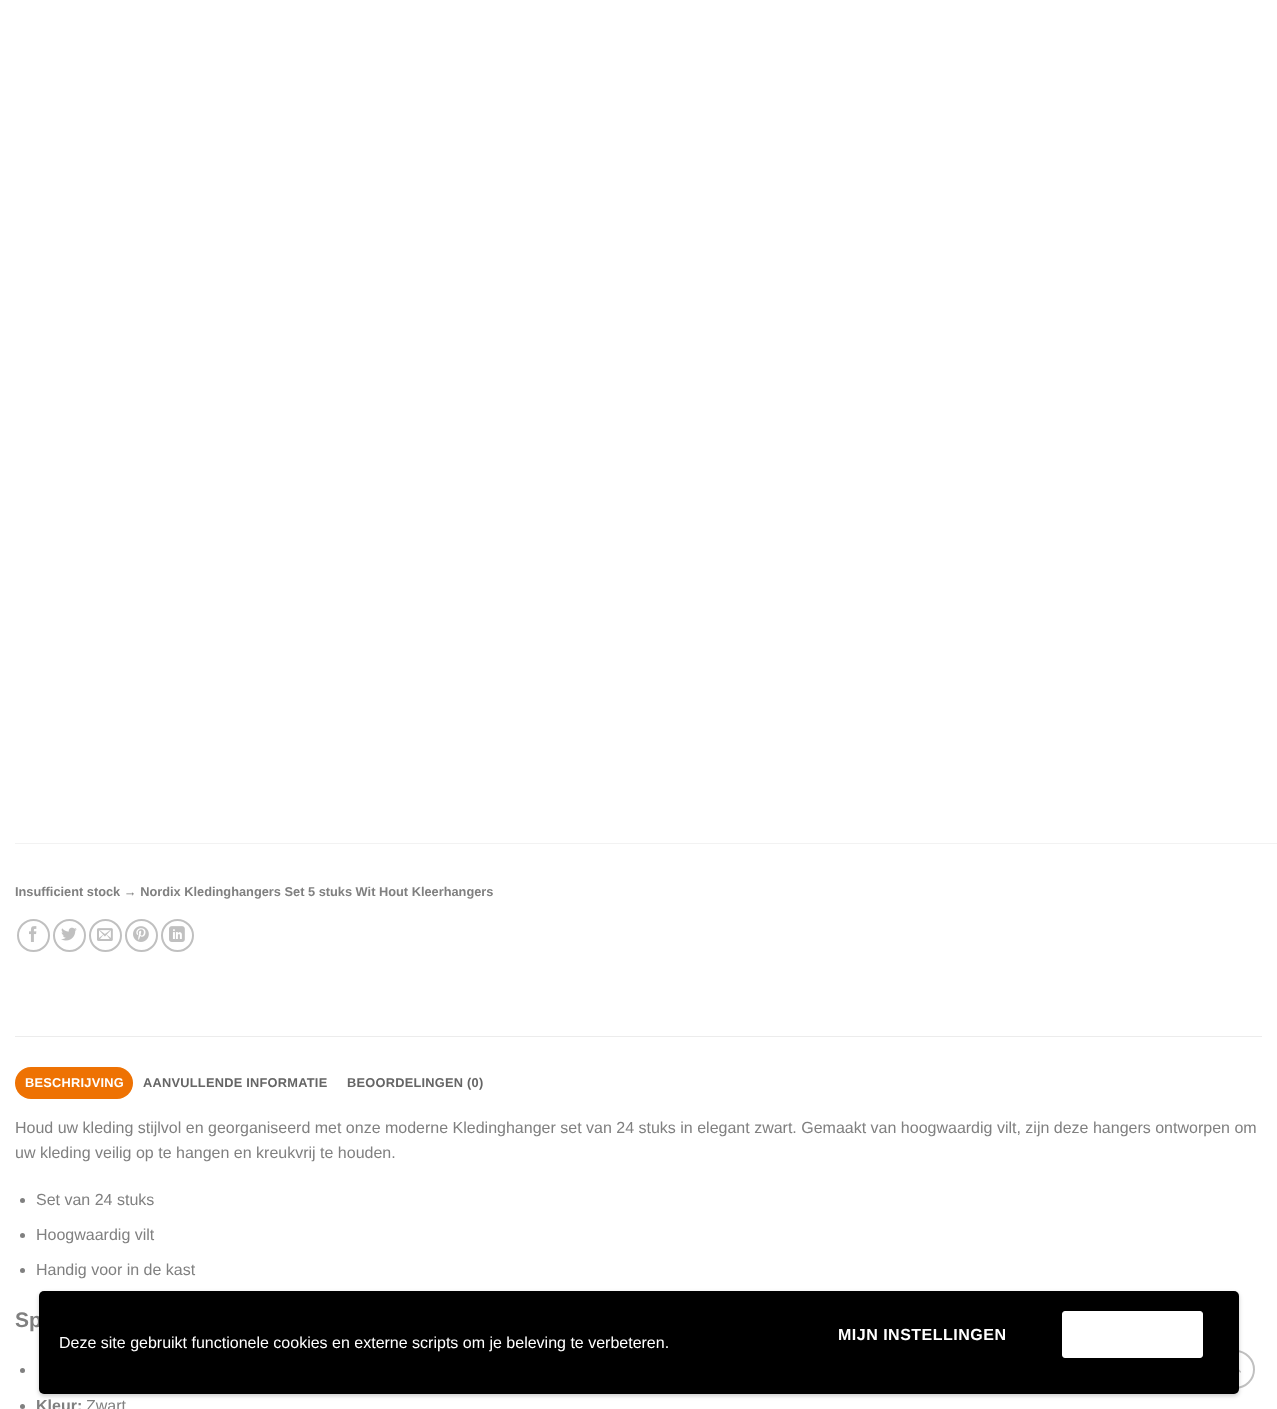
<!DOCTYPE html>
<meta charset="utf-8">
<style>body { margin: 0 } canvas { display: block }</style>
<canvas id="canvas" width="1277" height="1409"></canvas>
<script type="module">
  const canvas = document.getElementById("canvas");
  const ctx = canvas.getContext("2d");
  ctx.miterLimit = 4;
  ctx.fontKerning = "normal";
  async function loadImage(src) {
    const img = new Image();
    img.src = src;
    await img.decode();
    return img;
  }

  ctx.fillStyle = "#ffffff";
  ctx.fillRect(0, 0, 1277, 1409);
  ctx.fillStyle = "#f2f2f2";
  ctx.fillRect(15, 843, 1262, 1);
  ctx.font = "bold 12.8px Liberation Sans";
  ctx.fillStyle = "#808080";
  ctx.fillText("Insufficient stock → Nordix Kledinghangers Set 5 stuks Wit Hout Kleerhangers", 15, 896);
  ctx.beginPath();
  ctx.arc(33.5, 935.5, 15.5, 0, Math.PI * 2);
  ctx.strokeStyle = "#c0c0c0";
  ctx.lineWidth = 2;
  ctx.stroke();
  ctx.drawImage(await loadImage("img1.png"), 29, 926, 8, 16);
  ctx.beginPath();
  ctx.arc(69.5, 935.5, 15.5, 0, Math.PI * 2);
  ctx.stroke();
  ctx.drawImage(await loadImage("img2.png"), 61, 927, 16, 14);
  ctx.beginPath();
  ctx.arc(105.5, 935.5, 15.5, 0, Math.PI * 2);
  ctx.stroke();
  ctx.drawImage(await loadImage("img3.png"), 97, 928, 16, 13);
  ctx.beginPath();
  ctx.arc(141.5, 935.5, 15.5, 0, Math.PI * 2);
  ctx.stroke();
  ctx.drawImage(await loadImage("img4.png"), 133, 926, 16, 16);
  ctx.beginPath();
  ctx.arc(177.5, 935.5, 15.5, 0, Math.PI * 2);
  ctx.stroke();
  ctx.drawImage(await loadImage("img5.png"), 169, 926, 16, 16);
  ctx.fillStyle = "#ececec";
  ctx.fillRect(15, 1036, 1247, 1);
  ctx.fillStyle = "#ee7203";
  ctx.beginPath();
  ctx.roundRect(15, 1067, 118, 32, 16);
  ctx.fill();
  ctx.letterSpacing = "0.25px";
  ctx.fillStyle = "#ffffff";
  ctx.fillText("BESCHRIJVING", 25, 1087);
  ctx.fillStyle = "#656565";
  ctx.fillText("AANVULLENDE INFORMATIE", 143, 1087);
  ctx.fillText("BEOORDELINGEN (0)", 347, 1087);
  ctx.letterSpacing = "0px";
  ctx.font = "16px Liberation Sans";
  ctx.fillStyle = "#808080";
  ctx.fillText("Houd uw kleding stijlvol en georganiseerd met onze moderne Kledinghanger set van 24 stuks in elegant zwart. Gemaakt van hoogwaardig vilt, zijn deze hangers ontworpen om", 15, 1133);
  ctx.fillText("uw kleding veilig op te hangen en kreukvrij te houden.", 15, 1158);
  ctx.beginPath();
  ctx.arc(22.5, 1200.5, 2.5, 0, Math.PI * 2);
  ctx.fill();
  ctx.fillText("Set van 24 stuks", 36, 1205);
  ctx.beginPath();
  ctx.arc(22.5, 1235.5, 2.5, 0, Math.PI * 2);
  ctx.fill();
  ctx.fillText("Hoogwaardig vilt", 36, 1240);
  ctx.beginPath();
  ctx.arc(22.5, 1270.5, 2.5, 0, Math.PI * 2);
  ctx.fill();
  ctx.fillText("Handig voor in de kast", 36, 1275);
  ctx.font = "bold 21px Liberation Sans";
  ctx.fillText("Sp", 15, 1327);
  ctx.beginPath();
  ctx.arc(22.5, 1370.5, 2.5, 0, Math.PI * 2);
  ctx.fill();
  ctx.beginPath();
  ctx.arc(22.5, 1406.5, 2.5, 0, Math.PI * 2);
  ctx.fill();
  ctx.font = "bold 16px Liberation Sans";
  ctx.fillText("Kleur:", 36, 1411);
  ctx.font = "16px Liberation Sans";
  ctx.fillText("Zwart", 86, 1411);
  ctx.beginPath();
  ctx.arc(1235.5, 1369.5, 18.5, 0, Math.PI * 2);
  ctx.stroke();
  ctx.drawImage(await loadImage("img6.png"), 1239, 1369, 2, 4);
  ctx.fillStyle = "rgba(0, 0, 0, 0.2)";
  ctx.filter = "blur(2px)";
  ctx.beginPath();
  ctx.roundRect(39, 1293, 1200, 103, 5);
  ctx.fill();
  ctx.filter = "none";
  ctx.fillStyle = "#000000";
  ctx.beginPath();
  ctx.roundRect(39, 1291, 1200, 103, 5);
  ctx.fill();
  ctx.letterSpacing = "0.5px";
  ctx.font = "bold 16px Liberation Sans";
  ctx.fillStyle = "#ffffff";
  ctx.fillText("MIJN INSTELLINGEN", 838, 1340);
  ctx.beginPath();
  ctx.roundRect(1062.5, 1311.5, 140, 46, 2.5);
  ctx.fill();
  ctx.strokeStyle = "#ffffff";
  ctx.lineWidth = 1;
  ctx.stroke();
  ctx.letterSpacing = "0px";
  ctx.font = "16px Liberation Sans";
  ctx.fillText("Deze site gebruikt functionele cookies en externe scripts om je beleving te verbeteren.", 59, 1348);
</script>
